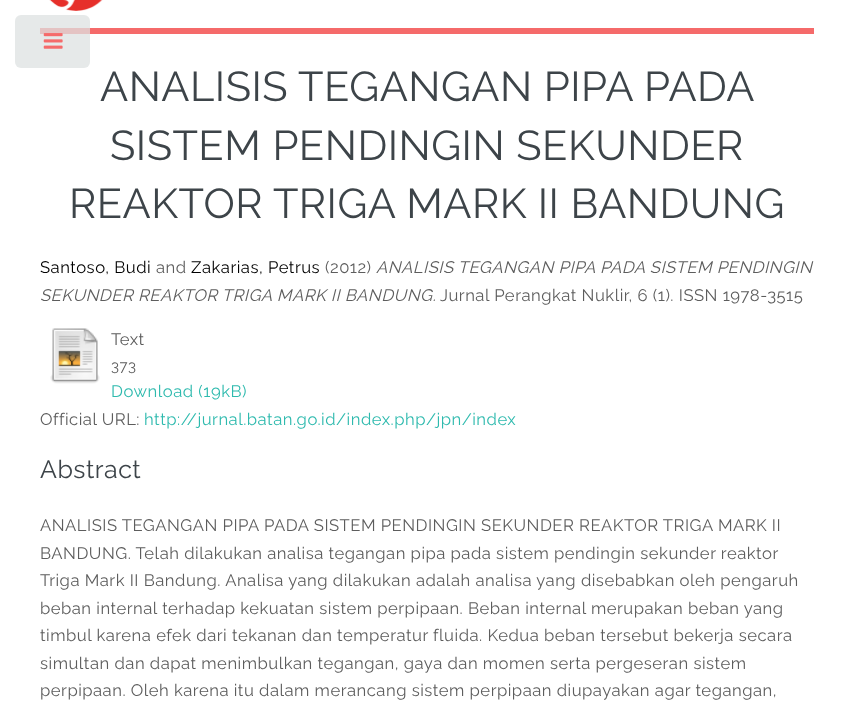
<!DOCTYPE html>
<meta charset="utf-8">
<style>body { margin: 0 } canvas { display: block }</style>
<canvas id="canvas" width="853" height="707"></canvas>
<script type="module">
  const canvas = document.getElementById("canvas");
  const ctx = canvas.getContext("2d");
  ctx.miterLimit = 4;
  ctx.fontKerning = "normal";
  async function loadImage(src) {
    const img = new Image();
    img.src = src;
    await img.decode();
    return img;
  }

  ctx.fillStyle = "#ffffff";
  ctx.fillRect(0, 0, 853, 707);
  ctx.fillStyle = "#f56a6a";
  ctx.fillRect(40, 28, 774, 6);
  ctx.fillStyle = "rgba(222, 225, 226, 0.75)";
  ctx.beginPath();
  ctx.roundRect(15, 15, 75, 53, 6);
  ctx.fill();
  ctx.drawImage(await loadImage("img1.png"), 43, 33, 20, 16);
  ctx.drawImage(await loadImage("img2.png"), 49, 0, 54, 11);
  ctx.letterSpacing = "0.5px";
  ctx.font = "41.7px Raleway";
  ctx.fillStyle = "#3d4449";
  ctx.fillText("ANALISIS TEGANGAN PIPA PADA", 100, 101);
  ctx.fillText("SISTEM PENDINGIN SEKUNDER", 110, 160);
  ctx.fillText("REAKTOR TRIGA MARK II BANDUNG", 69, 218);
  ctx.font = "16.65px Raleway";
  ctx.fillStyle = "#000000";
  ctx.fillText("Santoso, Budi", 40, 273);
  ctx.fillStyle = "#5d5d5d";
  ctx.fillText("and", 156, 273);
  ctx.fillStyle = "#000000";
  ctx.fillText("Zakarias, Petrus", 191, 273);
  ctx.fillStyle = "#5d5d5d";
  ctx.fillText("(2012)", 325, 273);
  ctx.font = "italic 16.65px Raleway";
  ctx.fillText("ANALISIS TEGANGAN PIPA PADA SISTEM PENDINGIN", 376, 273);
  ctx.fillText("SEKUNDER REAKTOR TRIGA MARK II BANDUNG.", 40, 301);
  ctx.font = "16.65px Raleway";
  ctx.fillText("Jurnal Perangkat Nuklir, 6 (1). ISSN 1978-3515", 440, 301);
  ctx.drawImage(await loadImage("img3.png"), 50, 328, 50, 56);
  ctx.fillText("Text", 111, 345);
  ctx.font = "15px Raleway";
  ctx.fillText("373", 111, 371);
  ctx.font = "16.65px Raleway";
  ctx.fillStyle = "#2ebaae";
  ctx.fillText("Download (19kB)", 111, 397);
  ctx.fillStyle = "#5d5d5d";
  ctx.fillText("Official URL:", 40, 425);
  ctx.fillStyle = "#2ebaae";
  ctx.fillText("http://jurnal.batan.go.id/index.php/jpn/index", 144, 425);
  ctx.font = "25px Raleway";
  ctx.fillStyle = "#3d4449";
  ctx.fillText("Abstract", 40, 478);
  ctx.font = "16.65px Raleway";
  ctx.fillStyle = "#5d5d5d";
  ctx.fillText("ANALISIS TEGANGAN PIPA PADA SISTEM PENDINGIN SEKUNDER REAKTOR TRIGA MARK II", 40, 531);
  ctx.fillText("BANDUNG. Telah dilakukan analisa tegangan pipa pada sistem pendingin sekunder reaktor", 40, 559);
  ctx.fillText("Triga Mark II Bandung. Analisa yang dilakukan adalah analisa yang disebabkan oleh pengaruh", 40, 586);
  ctx.fillText("beban internal terhadap kekuatan sistem perpipaan. Beban internal merupakan beban yang", 40, 614);
  ctx.fillText("timbul karena efek dari tekanan dan temperatur fluida. Kedua beban tersebut bekerja secara", 40, 641);
  ctx.fillText("simultan dan dapat menimbulkan tegangan, gaya dan momen serta pergeseran sistem", 40, 669);
  ctx.fillText("perpipaan. Oleh karena itu dalam merancang sistem perpipaan diupayakan agar tegangan,", 40, 696);
</script>
